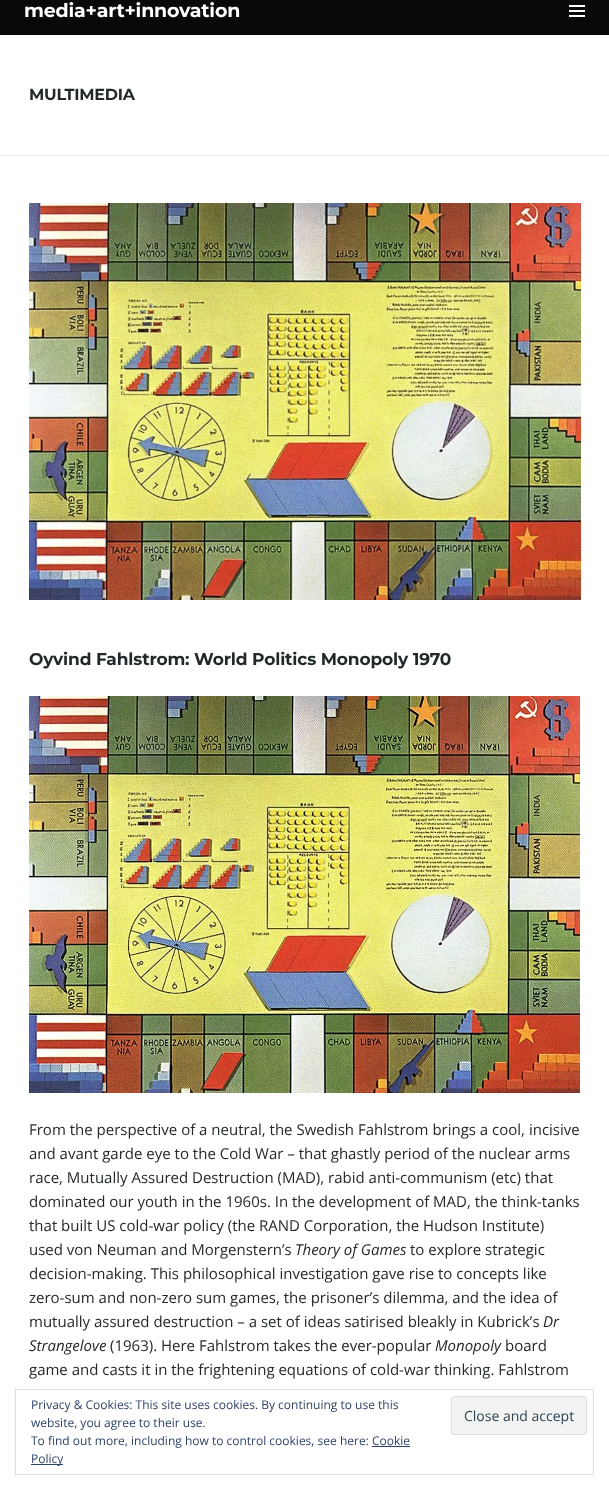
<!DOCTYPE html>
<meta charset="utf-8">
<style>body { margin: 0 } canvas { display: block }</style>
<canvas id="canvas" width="609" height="1490"></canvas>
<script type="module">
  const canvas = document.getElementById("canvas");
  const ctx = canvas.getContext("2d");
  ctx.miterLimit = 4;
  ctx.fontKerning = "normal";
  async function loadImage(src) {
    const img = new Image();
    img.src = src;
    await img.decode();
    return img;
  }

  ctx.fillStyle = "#ffffff";
  ctx.fillRect(0, 0, 609, 1490);
  ctx.fillStyle = "#080a0a";
  ctx.fillRect(0, 0, 609, 35);
  ctx.letterSpacing = "-0.2px";
  ctx.font = "bold 19px Montserrat";
  ctx.fillStyle = "#ffffff";
  ctx.fillText("media+art+innovation", 24, 17);
  ctx.drawImage(await loadImage("img1.png"), 569, 5, 16, 12);
  ctx.letterSpacing = "-0.25px";
  ctx.font = "bold 16px Montserrat";
  ctx.fillStyle = "#23292b";
  ctx.fillText("MULTIMEDIA", 29, 100);
  ctx.fillStyle = "#ededed";
  ctx.fillRect(0, 155, 609, 1);
  ctx.drawImage(await loadImage("img2.png"), 29, 203, 552, 397);
  ctx.letterSpacing = "-0.15px";
  ctx.font = "bold 17px Montserrat";
  ctx.fillStyle = "#23292b";
  ctx.fillText("Oyvind Fahlstrom: World Politics Monopoly 1970", 29, 665);
  ctx.drawImage(await loadImage("img3.png"), 29, 696, 551, 397);
  ctx.letterSpacing = "0px";
  ctx.font = "15px Open Sans";
  ctx.fillText("From the perspective of a neutral, the Swedish Fahlstrom brings a cool, incisive", 29, 1135);
  ctx.fillText("and avant garde eye to the Cold War – that ghastly period of the nuclear arms", 29, 1159);
  ctx.fillText("race, Mutually Assured Destruction (MAD), rabid anti-communism (etc) that", 29, 1183);
  ctx.fillText("dominated our youth in the 1960s. In the development of MAD, the think-tanks", 29, 1207);
  ctx.fillText("that built US cold-war policy (the RAND Corporation, the Hudson Institute)", 29, 1231);
  ctx.fillText("used von Neuman and Morgenstern’s", 29, 1255);
  ctx.font = "italic 15px Open Sans";
  ctx.fillText("Theory of Games", 295, 1255);
  ctx.font = "15px Open Sans";
  ctx.fillText("to explore strategic", 410, 1255);
  ctx.fillText("decision-making. This philosophical investigation gave rise to concepts like", 29, 1279);
  ctx.fillText("zero-sum and non-zero sum games, the prisoner’s dilemma, and the idea of", 29, 1303);
  ctx.fillText("mutually assured destruction – a set of ideas satirised bleakly in Kubrick’s", 29, 1327);
  ctx.font = "italic 15px Open Sans";
  ctx.fillText("Dr", 543, 1327);
  ctx.fillText("Strangelove", 29, 1351);
  ctx.font = "15px Open Sans";
  ctx.fillText("(1963). Here Fahlstrom takes the ever-popular", 110, 1351);
  ctx.font = "italic 15px Open Sans";
  ctx.fillText("Monopoly", 435, 1351);
  ctx.font = "15px Open Sans";
  ctx.fillText("board", 505, 1351);
  ctx.fillText("game and casts it in the frightening equations of cold-war thinking. Fahlstrom", 29, 1375);
  ctx.strokeStyle = "#dedede";
  ctx.strokeRect(15.5, 1389.5, 578, 85);
  ctx.font = "12px Open Sans";
  ctx.fillStyle = "#2e4467";
  ctx.fillText("Privacy & Cookies: This site uses cookies. By continuing to use this", 31, 1409);
  ctx.fillText("website, you agree to their use.", 31, 1427);
  ctx.fillStyle = "#f3f3f3";
  ctx.beginPath();
  ctx.roundRect(451.5, 1396.5, 135, 38, 2.5);
  ctx.fill();
  ctx.stroke();
  ctx.font = "14px Open Sans";
  ctx.fillStyle = "#2e4453";
  ctx.fillText("Close and accept", 464, 1421);
  ctx.font = "12px Open Sans";
  ctx.fillStyle = "#2e4467";
  ctx.fillText("To find out more, including how to control cookies, see here: Cookie", 31, 1445);
  ctx.fillRect(31, 1464, 32, 1);
  ctx.fillText("Policy", 31, 1463);
  ctx.fillRect(372, 1446, 38, 1);
</script>
